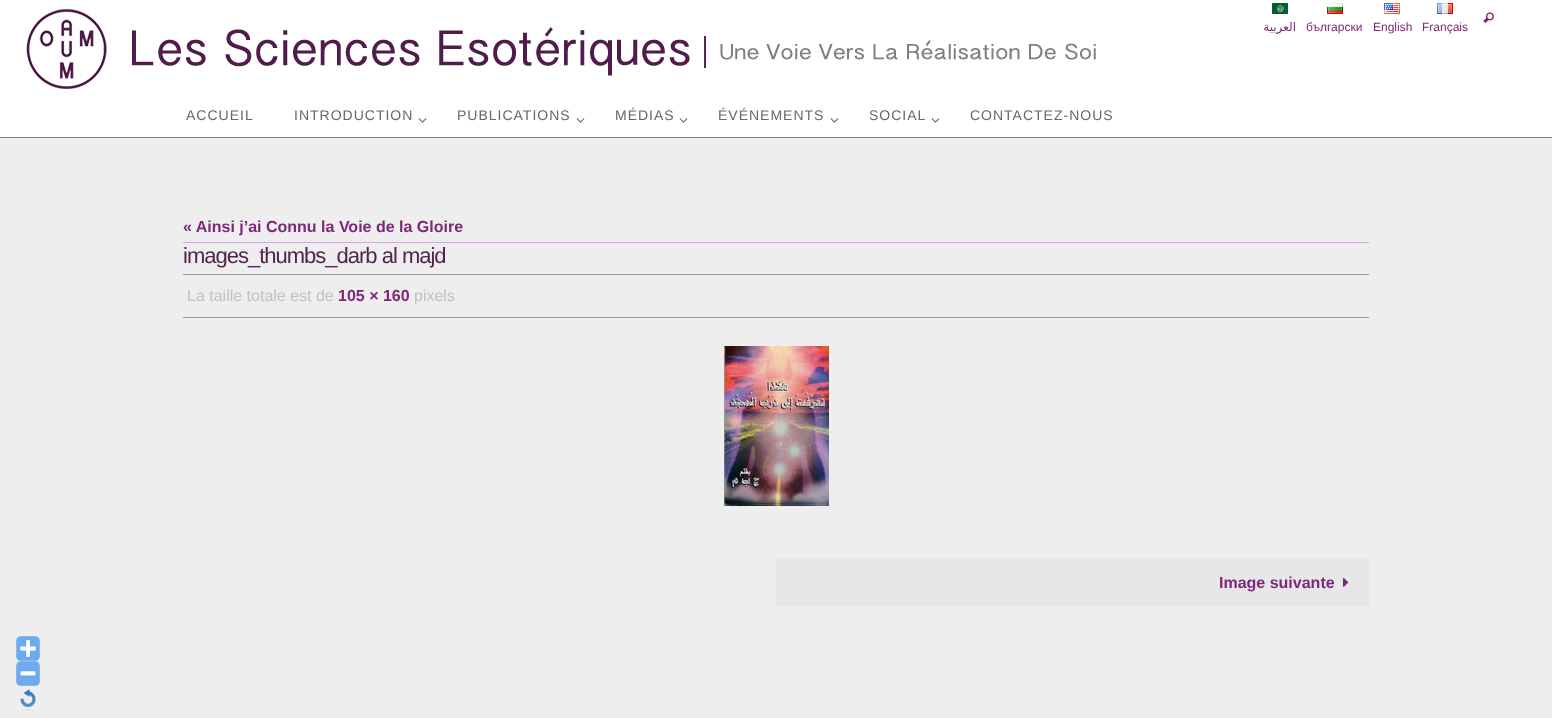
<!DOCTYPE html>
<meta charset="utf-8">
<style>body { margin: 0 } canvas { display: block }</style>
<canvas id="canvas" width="1552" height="718"></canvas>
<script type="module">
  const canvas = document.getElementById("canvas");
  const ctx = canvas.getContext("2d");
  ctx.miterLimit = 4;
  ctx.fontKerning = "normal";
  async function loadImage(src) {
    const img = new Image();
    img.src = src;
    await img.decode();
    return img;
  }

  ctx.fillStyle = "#eeeeee";
  ctx.fillRect(0, 0, 1552, 718);
  ctx.fillStyle = "#ffffff";
  ctx.fillRect(0, 0, 1552, 137);
  ctx.drawImage(await loadImage("img1.png"), 1483, 12, 11, 12);
  ctx.drawImage(await loadImage("img2.png"), 1272, 3, 16, 11);
  ctx.direction = "rtl";
  ctx.font = "12px DejaVu Sans";
  ctx.fillStyle = "#7e2678";
  ctx.fillText("العربية", 1296, 31);
  ctx.drawImage(await loadImage("img3.png"), 1327, 3, 16, 11);
  ctx.direction = "ltr";
  ctx.font = "12px Liberation Sans";
  ctx.fillText("български", 1306, 31);
  ctx.drawImage(await loadImage("img4.png"), 1384, 3, 16, 11);
  ctx.fillText("English", 1373, 31);
  ctx.drawImage(await loadImage("img5.png"), 1437, 3, 16, 11);
  ctx.fillText("Français", 1422, 31);
  ctx.drawImage(await loadImage("img6.png"), 26, 8, 1070, 81);
  ctx.fillStyle = "#808080";
  ctx.fillRect(0, 137, 1552, 1);
  ctx.letterSpacing = "1px";
  ctx.font = "14px Liberation Sans";
  ctx.fillStyle = "#666666";
  ctx.fillText("ACCUEIL", 186, 120);
  ctx.fillText("INTRODUCTION", 294, 120);
  ctx.drawImage(await loadImage("img7.png"), 418, 118, 9, 5);
  ctx.fillText("PUBLICATIONS", 457, 120);
  ctx.drawImage(await loadImage("img7.png"), 576, 118, 9, 5);
  ctx.fillText("MÉDIAS", 615, 120);
  ctx.drawImage(await loadImage("img7.png"), 679, 118, 9, 5);
  ctx.fillText("ÉVÉNEMENTS", 718, 120);
  ctx.drawImage(await loadImage("img7.png"), 830, 118, 9, 5);
  ctx.fillText("SOCIAL", 869, 120);
  ctx.drawImage(await loadImage("img7.png"), 931, 118, 9, 5);
  ctx.fillText("CONTACTEZ-NOUS", 970, 120);
  ctx.fillStyle = "#d89ef0";
  ctx.fillRect(183, 242, 1186, 1);
  ctx.letterSpacing = "0px";
  ctx.font = "bold 16px Liberation Sans";
  ctx.fillStyle = "#7e2678";
  ctx.fillText("« Ainsi j’ai Connu la Voie de la Gloire", 183, 232);
  ctx.letterSpacing = "-1px";
  ctx.font = "22px Liberation Sans";
  ctx.fillStyle = "#51224c";
  ctx.fillText("images_thumbs_darb al majd", 183, 263);
  ctx.fillStyle = "#999999";
  ctx.fillRect(183, 274, 1186, 1);
  ctx.fillRect(183, 317, 1186, 1);
  ctx.letterSpacing = "0px";
  ctx.font = "16px Liberation Sans";
  ctx.fillStyle = "#c1c1c1";
  ctx.fillText("La taille totale est de", 187, 301);
  ctx.font = "bold 16px Liberation Sans";
  ctx.fillStyle = "#7e2678";
  ctx.fillText("105 × 160", 338, 301);
  ctx.font = "16px Liberation Sans";
  ctx.fillStyle = "#c1c1c1";
  ctx.fillText("pixels", 414, 301);
  ctx.drawImage(await loadImage("img8.png"), 724, 346, 105, 160);
  ctx.fillStyle = "#e7e7e7";
  ctx.fillRect(776, 558, 593, 49);
  ctx.font = "bold 16px Liberation Sans";
  ctx.fillStyle = "#7e2678";
  ctx.fillText("Image suivante", 1219, 588);
  ctx.drawImage(await loadImage("img9.png"), 1343, 577, 6, 10);
  ctx.drawImage(await loadImage("img10.png"), 16, 636, 24, 25);
  ctx.drawImage(await loadImage("img11.png"), 16, 661, 24, 25);
  ctx.drawImage(await loadImage("img12.png"), 20, 689, 16, 22);
</script>
